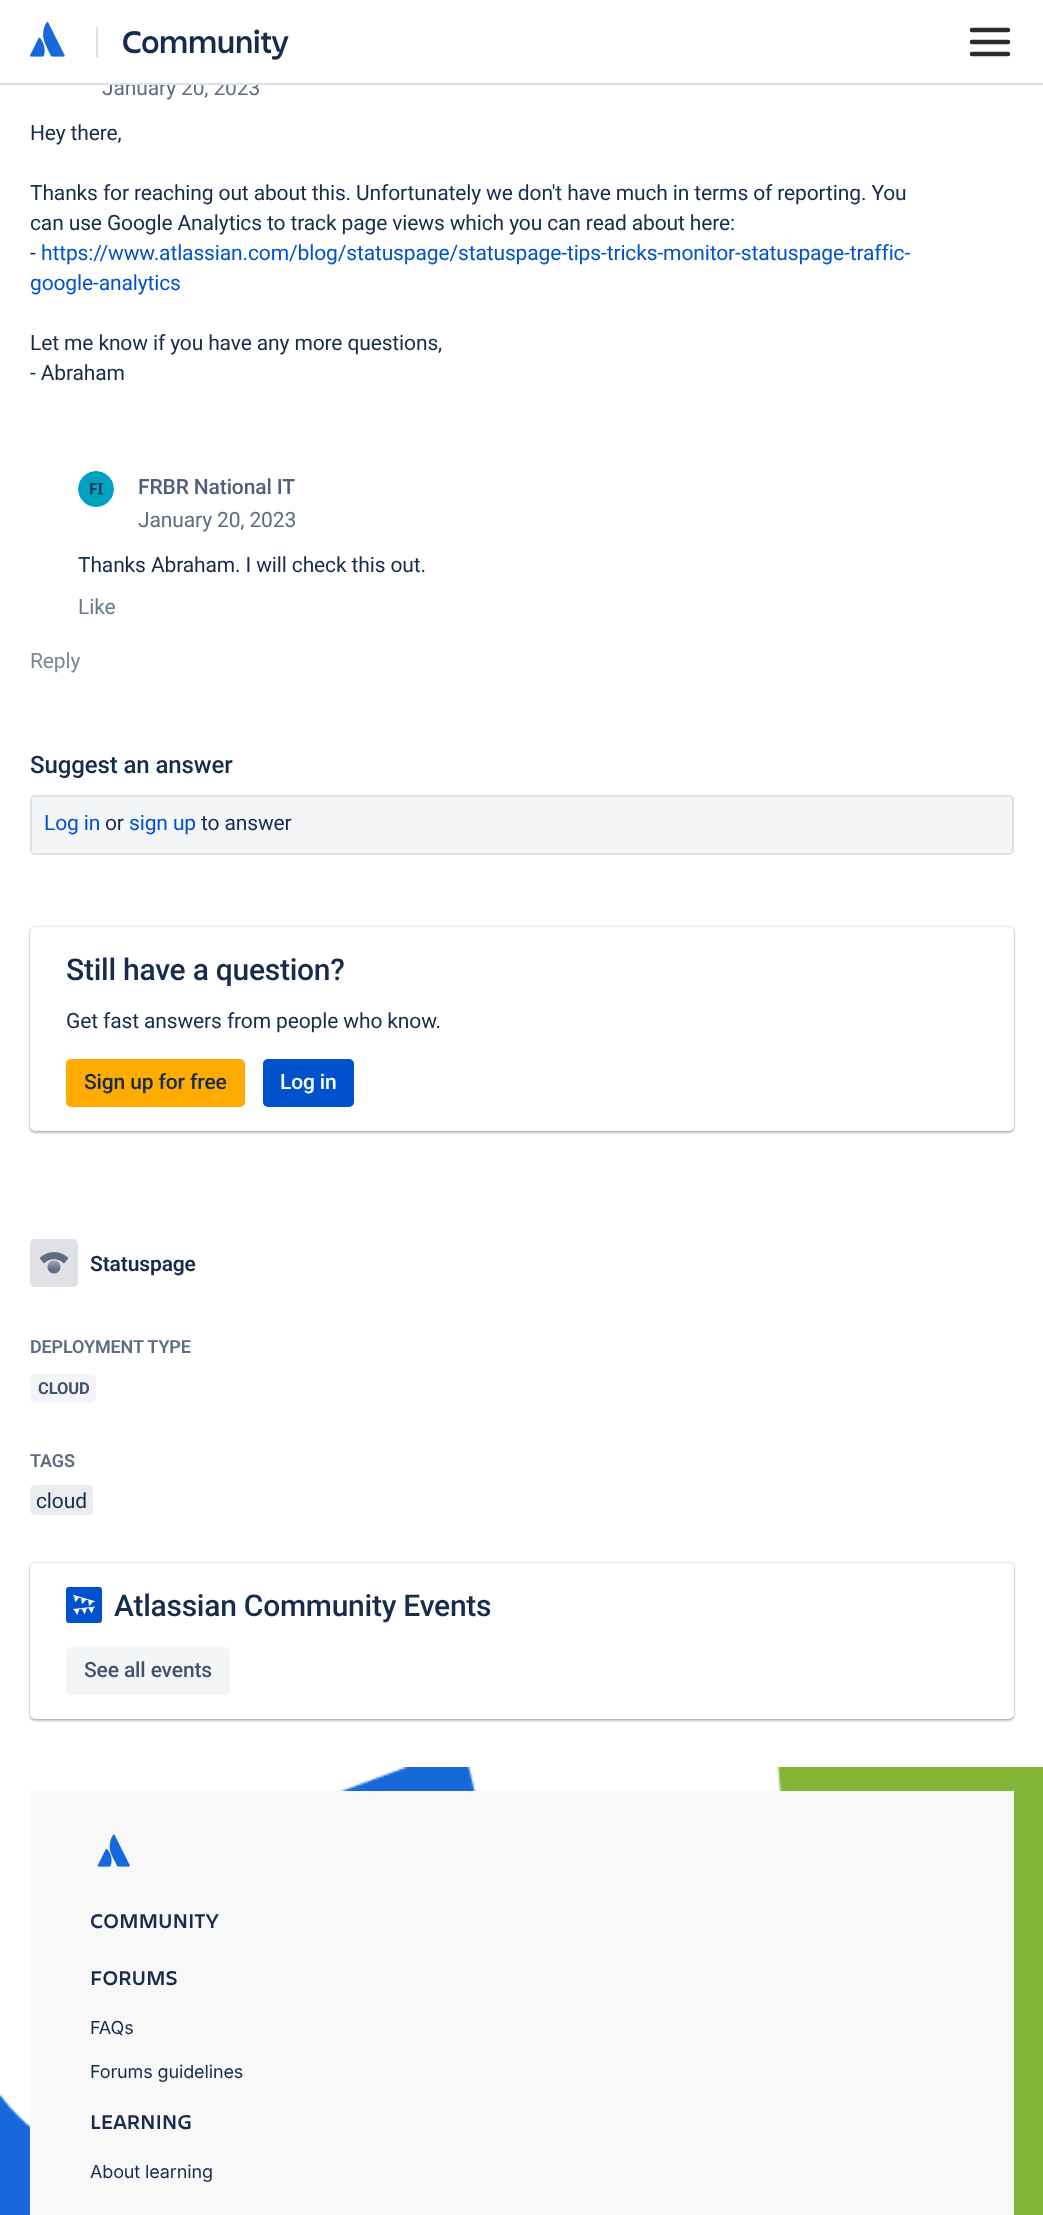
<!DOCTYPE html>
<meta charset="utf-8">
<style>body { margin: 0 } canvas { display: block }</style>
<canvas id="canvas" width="1043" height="2215"></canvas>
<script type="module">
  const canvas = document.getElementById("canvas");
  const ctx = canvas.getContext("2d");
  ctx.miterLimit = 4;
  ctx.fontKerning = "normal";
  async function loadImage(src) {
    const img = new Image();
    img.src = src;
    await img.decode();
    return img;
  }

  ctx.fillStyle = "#ffffff";
  ctx.fillRect(0, 0, 1043, 2215);
  ctx.letterSpacing = "-0.13px";
  ctx.font = "21px Roboto";
  ctx.fillStyle = "#5e6c84";
  ctx.fillText("January 20, 2023", 102, 95);
  ctx.fillStyle = "#ffffff";
  ctx.fillRect(110, 79, 149, 4);
  ctx.fillStyle = "#dfe1e6";
  ctx.fillRect(0, 83, 1043, 2);
  ctx.drawImage(await loadImage("img1.png"), 30, 22, 35, 35);
  ctx.fillRect(96, 27, 2, 30);
  ctx.font = "600 33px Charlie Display";
  ctx.fillStyle = "#172b4d";
  ctx.fillText("Community", 122, 53);
  ctx.drawImage(await loadImage("img2.png"), 969, 27, 42, 30);
  ctx.font = "21px Roboto";
  ctx.fillText("Hey there,", 30, 140);
  ctx.fillText("Thanks for reaching out about this. Unfortunately we don't have much in terms of reporting. You", 30, 200);
  ctx.fillText("can use Google Analytics to track page views which you can read about here:", 30, 230);
  ctx.fillText("-", 30, 260);
  ctx.fillStyle = "#0052cc";
  ctx.fillText("https://www.atlassian.com/blog/statuspage/statuspage-tips-tricks-monitor-statuspage-traffic-", 41, 260);
  ctx.fillText("google-analytics", 30, 290);
  ctx.fillStyle = "#172b4d";
  ctx.fillText("Let me know if you have any more questions,", 30, 350);
  ctx.fillText("- Abraham", 30, 380);
  ctx.drawImage(await loadImage("img3.png"), 78, 471, 36, 36);
  ctx.font = "500 21px Roboto";
  ctx.fillStyle = "#505f79";
  ctx.fillText("FRBR National IT", 138, 494);
  ctx.font = "21px Roboto";
  ctx.fillStyle = "#5e6c84";
  ctx.fillText("January 20, 2023", 138, 527);
  ctx.fillStyle = "#172b4d";
  ctx.fillText("Thanks Abraham. I will check this out.", 78, 572);
  ctx.fillStyle = "#6b778c";
  ctx.fillText("Like", 78, 614);
  ctx.fillStyle = "#7a869a";
  ctx.fillText("Reply", 30, 668);
  ctx.letterSpacing = "-0.1px";
  ctx.font = "500 24px Roboto";
  ctx.fillStyle = "#172b4d";
  ctx.fillText("Suggest an answer", 30, 773);
  ctx.fillStyle = "#f4f5f7";
  ctx.beginPath();
  ctx.roundRect(31, 796, 982, 58, 4);
  ctx.fill();
  ctx.strokeStyle = "#dfe1e6";
  ctx.lineWidth = 2;
  ctx.stroke();
  ctx.letterSpacing = "-0.13px";
  ctx.font = "21px Roboto";
  ctx.fillStyle = "#0052cc";
  ctx.fillText("Log in", 44, 830);
  ctx.fillStyle = "#172b4d";
  ctx.fillText("or", 105, 830);
  ctx.fillStyle = "#0052cc";
  ctx.fillText("sign up", 129, 830);
  ctx.fillStyle = "#172b4d";
  ctx.fillText("to answer", 201, 830);
  ctx.fillStyle = "rgba(9, 30, 66, 0.31)";
  ctx.filter = "blur(1px)";
  ctx.beginPath();
  ctx.roundRect(30, 927, 984, 204, 5);
  ctx.fill();
  ctx.filter = "none";
  ctx.fillStyle = "rgba(9, 30, 66, 0.25)";
  ctx.filter = "blur(1px)";
  ctx.beginPath();
  ctx.roundRect(30, 929, 984, 204, 5);
  ctx.fill();
  ctx.filter = "none";
  ctx.fillStyle = "#ffffff";
  ctx.beginPath();
  ctx.roundRect(30, 927, 984, 204, 5);
  ctx.fill();
  ctx.letterSpacing = "-0.25px";
  ctx.font = "500 30px Roboto";
  ctx.fillStyle = "#172b4d";
  ctx.fillText("Still have a question?", 66, 980);
  ctx.letterSpacing = "-0.13px";
  ctx.font = "21px Roboto";
  ctx.fillText("Get fast answers from people who know.", 66, 1028);
  ctx.fillStyle = "#ffab00";
  ctx.beginPath();
  ctx.roundRect(66, 1059, 179, 48, 5);
  ctx.fill();
  ctx.font = "500 21px Roboto";
  ctx.fillStyle = "#172b4d";
  ctx.fillText("Sign up for free", 84, 1089);
  ctx.fillStyle = "#0052cc";
  ctx.beginPath();
  ctx.roundRect(263, 1059, 91, 48, 5);
  ctx.fill();
  ctx.fillStyle = "#ffffff";
  ctx.fillText("Log in", 280, 1089);
  ctx.fillStyle = "#dfe1e6";
  ctx.beginPath();
  ctx.roundRect(30, 1239, 48, 48, 5);
  ctx.fill();
  ctx.drawImage(await loadImage("img4.png"), 39, 1252, 30, 22);
  ctx.font = "600 21px Roboto";
  ctx.fillStyle = "#172b4d";
  ctx.fillText("Statuspage", 90, 1271);
  ctx.font = "600 18px Roboto";
  ctx.fillStyle = "#5e6c84";
  ctx.fillText("DEPLOYMENT TYPE", 30, 1353);
  ctx.fillStyle = "#f4f5f7";
  ctx.beginPath();
  ctx.roundRect(30, 1374, 66, 29, 5);
  ctx.fill();
  ctx.font = "bold 16.5px Roboto";
  ctx.fillStyle = "#42526e";
  ctx.fillText("CLOUD", 38, 1394);
  ctx.font = "600 18px Roboto";
  ctx.fillStyle = "#5e6c84";
  ctx.fillText("TAGS", 30, 1467);
  ctx.fillStyle = "#ebecf0";
  ctx.beginPath();
  ctx.roundRect(30, 1485, 63, 30, 5);
  ctx.fill();
  ctx.font = "21px Roboto";
  ctx.fillStyle = "#172b4d";
  ctx.fillText("cloud", 36, 1508);
  ctx.fillStyle = "rgba(9, 30, 66, 0.31)";
  ctx.filter = "blur(1px)";
  ctx.beginPath();
  ctx.roundRect(30, 1563, 984, 156, 5);
  ctx.fill();
  ctx.filter = "none";
  ctx.fillStyle = "rgba(9, 30, 66, 0.25)";
  ctx.filter = "blur(1px)";
  ctx.beginPath();
  ctx.roundRect(30, 1565, 984, 156, 5);
  ctx.fill();
  ctx.filter = "none";
  ctx.fillStyle = "#ffffff";
  ctx.beginPath();
  ctx.roundRect(30, 1563, 984, 156, 5);
  ctx.fill();
  ctx.fillStyle = "#0052cc";
  ctx.beginPath();
  ctx.roundRect(66, 1587, 36, 36, 3);
  ctx.fill();
  ctx.drawImage(await loadImage("img5.png"), 73, 1595, 22, 20);
  ctx.letterSpacing = "-0.25px";
  ctx.font = "500 30px Roboto";
  ctx.fillStyle = "#172b4d";
  ctx.fillText("Atlassian Community Events", 114, 1616);
  ctx.fillStyle = "#f4f5f7";
  ctx.beginPath();
  ctx.roundRect(66, 1647, 164, 48, 5);
  ctx.fill();
  ctx.letterSpacing = "-0.13px";
  ctx.font = "500 21px Roboto";
  ctx.fillStyle = "#42526e";
  ctx.fillText("See all events", 84, 1677);
  ctx.drawImage(await loadImage("img6.png"), 0, 1767, 1043, 448);
  ctx.fillStyle = "#f8f8f8";
  ctx.fillRect(30, 1791, 984, 424);
  ctx.drawImage(await loadImage("img7.png"), 97, 1834, 33, 33);
  ctx.font = "600 21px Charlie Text";
  ctx.fillStyle = "#172b4d";
  ctx.fillText("COMMUNITY", 90, 1928);
  ctx.fillText("FORUMS", 90, 1985);
  ctx.font = "18px Inter";
  ctx.fillText("FAQs", 90, 2034);
  ctx.fillText("Forums guidelines", 90, 2078);
  ctx.font = "600 21px Charlie Text";
  ctx.fillText("LEARNING", 90, 2129);
  ctx.font = "18px Inter";
  ctx.fillText("About learning", 90, 2178);
</script>
